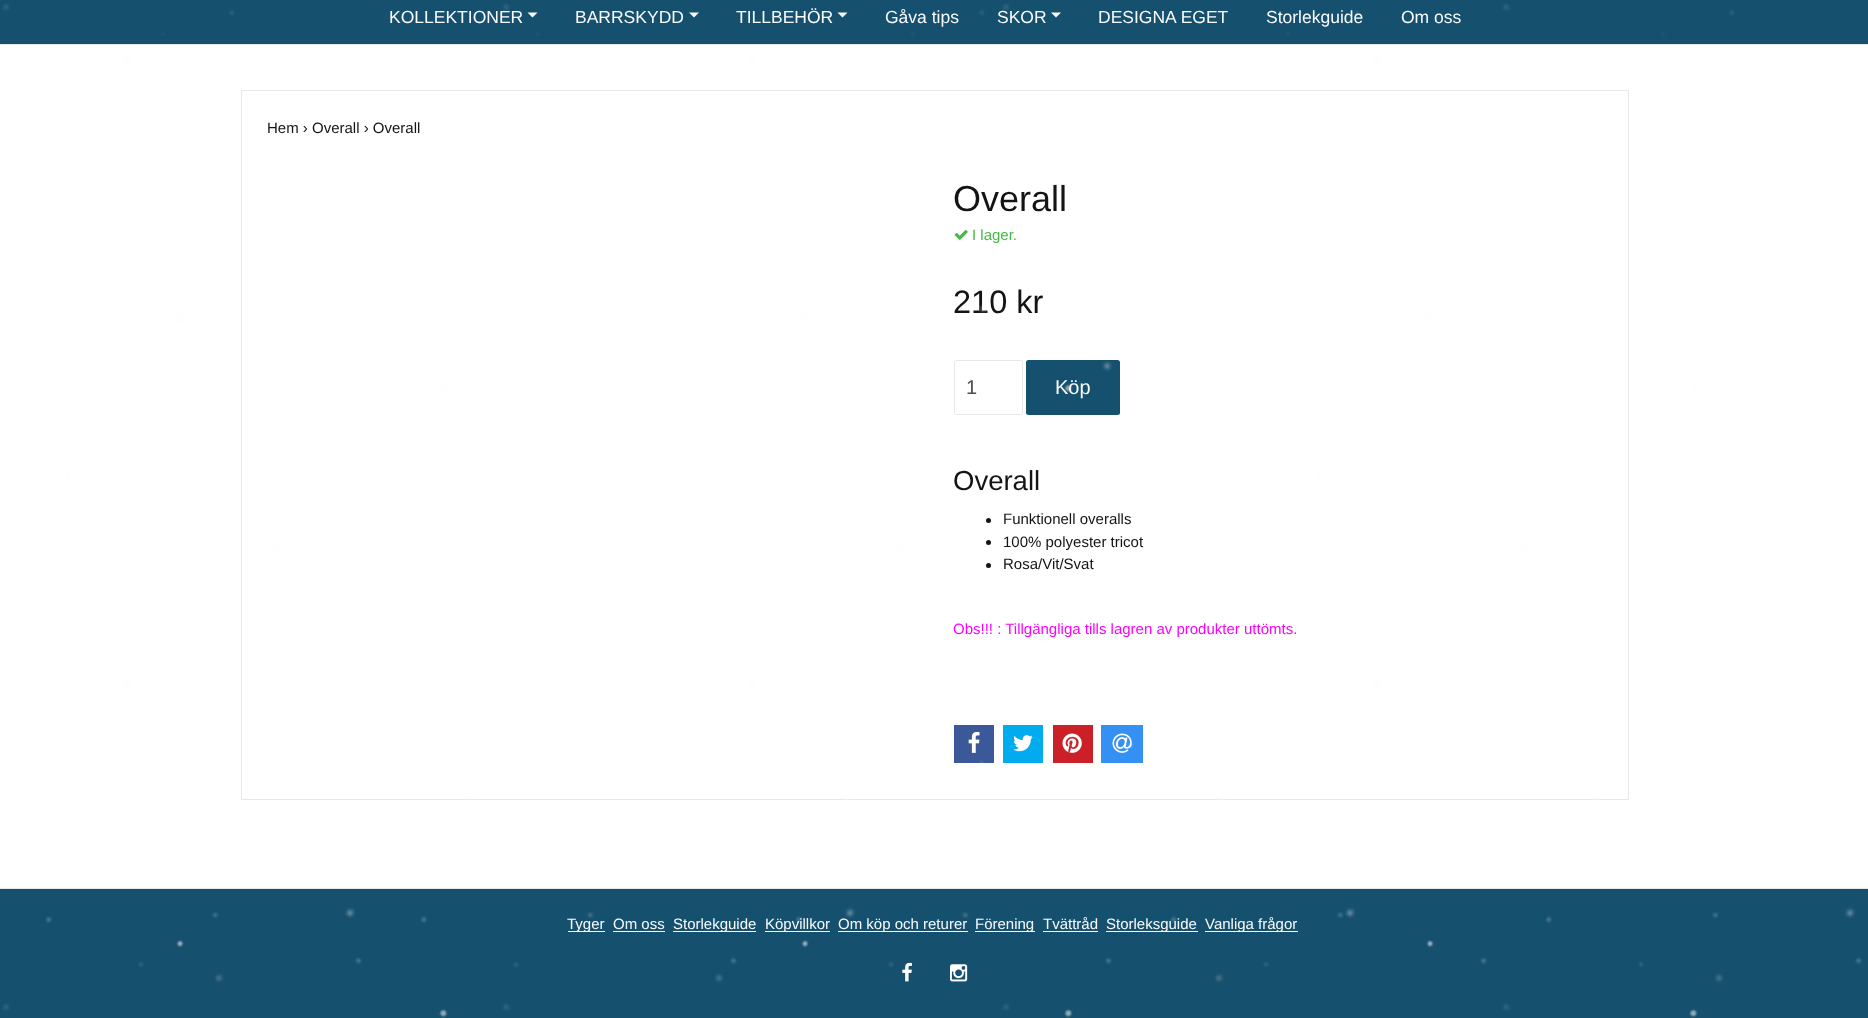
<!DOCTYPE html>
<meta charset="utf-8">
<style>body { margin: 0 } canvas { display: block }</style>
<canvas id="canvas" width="1868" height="1018"></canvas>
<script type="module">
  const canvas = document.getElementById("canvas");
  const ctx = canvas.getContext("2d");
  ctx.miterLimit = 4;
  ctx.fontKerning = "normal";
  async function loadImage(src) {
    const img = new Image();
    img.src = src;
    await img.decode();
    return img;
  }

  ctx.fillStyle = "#ffffff";
  ctx.fillRect(0, 0, 1868, 1018);
  ctx.fillStyle = "#15506e";
  ctx.fillRect(0, 0, 1868, 44);
  ctx.fillStyle = "#e8e8e8";
  ctx.fillRect(0, 44, 1868, 1);
  ctx.font = "17.5px Liberation Sans";
  ctx.fillStyle = "#fbfbfb";
  ctx.fillText("KOLLEKTIONER", 389, 23);
  ctx.beginPath();
  ctx.moveTo(527.5, 12.5);
  ctx.lineTo(537.5, 12.5);
  ctx.lineTo(532.5, 17.5);
  ctx.closePath();
  ctx.fill();
  ctx.fillText("BARRSKYDD", 575, 23);
  ctx.beginPath();
  ctx.moveTo(689, 12.5);
  ctx.lineTo(699, 12.5);
  ctx.lineTo(694, 17.5);
  ctx.closePath();
  ctx.fill();
  ctx.fillText("TILLBEHÖR", 736, 23);
  ctx.beginPath();
  ctx.moveTo(837.5, 12.5);
  ctx.lineTo(847.5, 12.5);
  ctx.lineTo(842.5, 17.5);
  ctx.closePath();
  ctx.fill();
  ctx.fillText("Gåva tips", 885, 23);
  ctx.fillText("SKOR", 997, 23);
  ctx.beginPath();
  ctx.moveTo(1051, 12.5);
  ctx.lineTo(1061, 12.5);
  ctx.lineTo(1056, 17.5);
  ctx.closePath();
  ctx.fill();
  ctx.fillText("DESIGNA EGET", 1098, 23);
  ctx.fillText("Storlekguide", 1266, 23);
  ctx.fillText("Om oss", 1401, 23);
  ctx.strokeStyle = "#e8e8e8";
  ctx.strokeRect(241.5, 90.5, 1387, 709);
  ctx.font = "15px Liberation Sans";
  ctx.fillStyle = "#141414";
  ctx.fillText("Hem › Overall › Overall", 267, 133);
  ctx.font = "36px Liberation Sans";
  ctx.fillText("Overall", 953, 211);
  ctx.drawImage(await loadImage("img2.png"), 954, 230, 14, 10);
  ctx.font = "15px Liberation Sans";
  ctx.fillStyle = "#44b944";
  ctx.fillText("I lager.", 972, 240);
  ctx.font = "32.5px Liberation Sans";
  ctx.fillStyle = "#141414";
  ctx.fillText("210 kr", 953, 313);
  ctx.beginPath();
  ctx.roundRect(954.5, 360.5, 68, 54, 2);
  ctx.stroke();
  ctx.font = "20px Liberation Sans";
  ctx.fillStyle = "#495057";
  ctx.fillText("1", 966, 394);
  ctx.fillStyle = "#15506e";
  ctx.beginPath();
  ctx.roundRect(1026, 360, 94, 55, 2.5);
  ctx.fill();
  ctx.fillStyle = "#fbfbfb";
  ctx.fillText("Köp", 1055, 394);
  ctx.font = "27.5px Liberation Sans";
  ctx.fillStyle = "#141414";
  ctx.fillText("Overall", 953, 490);
  ctx.beginPath();
  ctx.arc(988.5, 520.5, 2.5, 0, Math.PI * 2);
  ctx.fill();
  ctx.font = "15px Liberation Sans";
  ctx.fillText("Funktionell overalls", 1003, 524);
  ctx.beginPath();
  ctx.arc(988.5, 542.5, 2.5, 0, Math.PI * 2);
  ctx.fill();
  ctx.fillText("100% polyester tricot", 1003, 547);
  ctx.beginPath();
  ctx.arc(988.5, 565.5, 2.5, 0, Math.PI * 2);
  ctx.fill();
  ctx.fillText("Rosa/Vit/Svat", 1003, 569);
  ctx.fillStyle = "#ff00ff";
  ctx.fillText("Obs!!! : Tillgängliga tills lagren av produkter uttömts.", 953, 634);
  ctx.fillStyle = "#3b5998";
  ctx.fillRect(954, 725, 40, 38);
  ctx.drawImage(await loadImage("img3.png"), 968, 732, 12, 21);
  ctx.fillStyle = "#00aced";
  ctx.fillRect(1003, 725, 40, 38);
  ctx.drawImage(await loadImage("img4.png"), 1013, 735, 20, 17);
  ctx.fillStyle = "#cb2027";
  ctx.fillRect(1053, 725, 40, 38);
  ctx.drawImage(await loadImage("img5.png"), 1062, 733, 20, 20);
  ctx.fillStyle = "#3490f3";
  ctx.fillRect(1101, 725, 42, 38);
  ctx.drawImage(await loadImage("img6.png"), 1112, 733, 20, 20);
  ctx.fillStyle = "#15506e";
  ctx.fillRect(0, 889, 1868, 129);
  ctx.fillStyle = "#e8e8e8";
  ctx.fillRect(0, 888, 1868, 1);
  ctx.fillStyle = "#ffffff";
  ctx.fillRect(568, 931, 37, 1);
  ctx.fillStyle = "#fbfbfb";
  ctx.fillText("Tyger", 567, 929);
  ctx.fillText("Om oss", 613, 929);
  ctx.fillStyle = "#ffffff";
  ctx.fillRect(613, 931, 52, 1);
  ctx.fillRect(673, 931, 83, 1);
  ctx.fillStyle = "#fbfbfb";
  ctx.fillText("Storlekguide", 673, 929);
  ctx.fillStyle = "#ffffff";
  ctx.fillRect(765, 931, 65, 1);
  ctx.fillStyle = "#fbfbfb";
  ctx.fillText("Köpvillkor", 765, 929);
  ctx.fillStyle = "#ffffff";
  ctx.fillRect(838, 931, 130, 1);
  ctx.fillStyle = "#fbfbfb";
  ctx.fillText("Om köp och returer", 838, 929);
  ctx.fillStyle = "#ffffff";
  ctx.fillRect(975, 931, 60, 1);
  ctx.fillStyle = "#fbfbfb";
  ctx.fillText("Förening", 975, 929);
  ctx.fillText("Tvättråd", 1043, 929);
  ctx.fillStyle = "#ffffff";
  ctx.fillRect(1043, 931, 55, 1);
  ctx.fillRect(1106, 931, 92, 1);
  ctx.fillStyle = "#fbfbfb";
  ctx.fillText("Storleksguide", 1106, 929);
  ctx.fillStyle = "#ffffff";
  ctx.fillRect(1205, 931, 93, 1);
  ctx.fillStyle = "#fbfbfb";
  ctx.fillText("Vanliga frågor", 1205, 929);
  ctx.drawImage(await loadImage("img7.png"), 902, 962, 10, 20);
  ctx.drawImage(await loadImage("img8.png"), 950, 964, 18, 18);
  ctx.drawImage(await loadImage("img1.png"), 2, 3, 1860, 1015);
</script>
